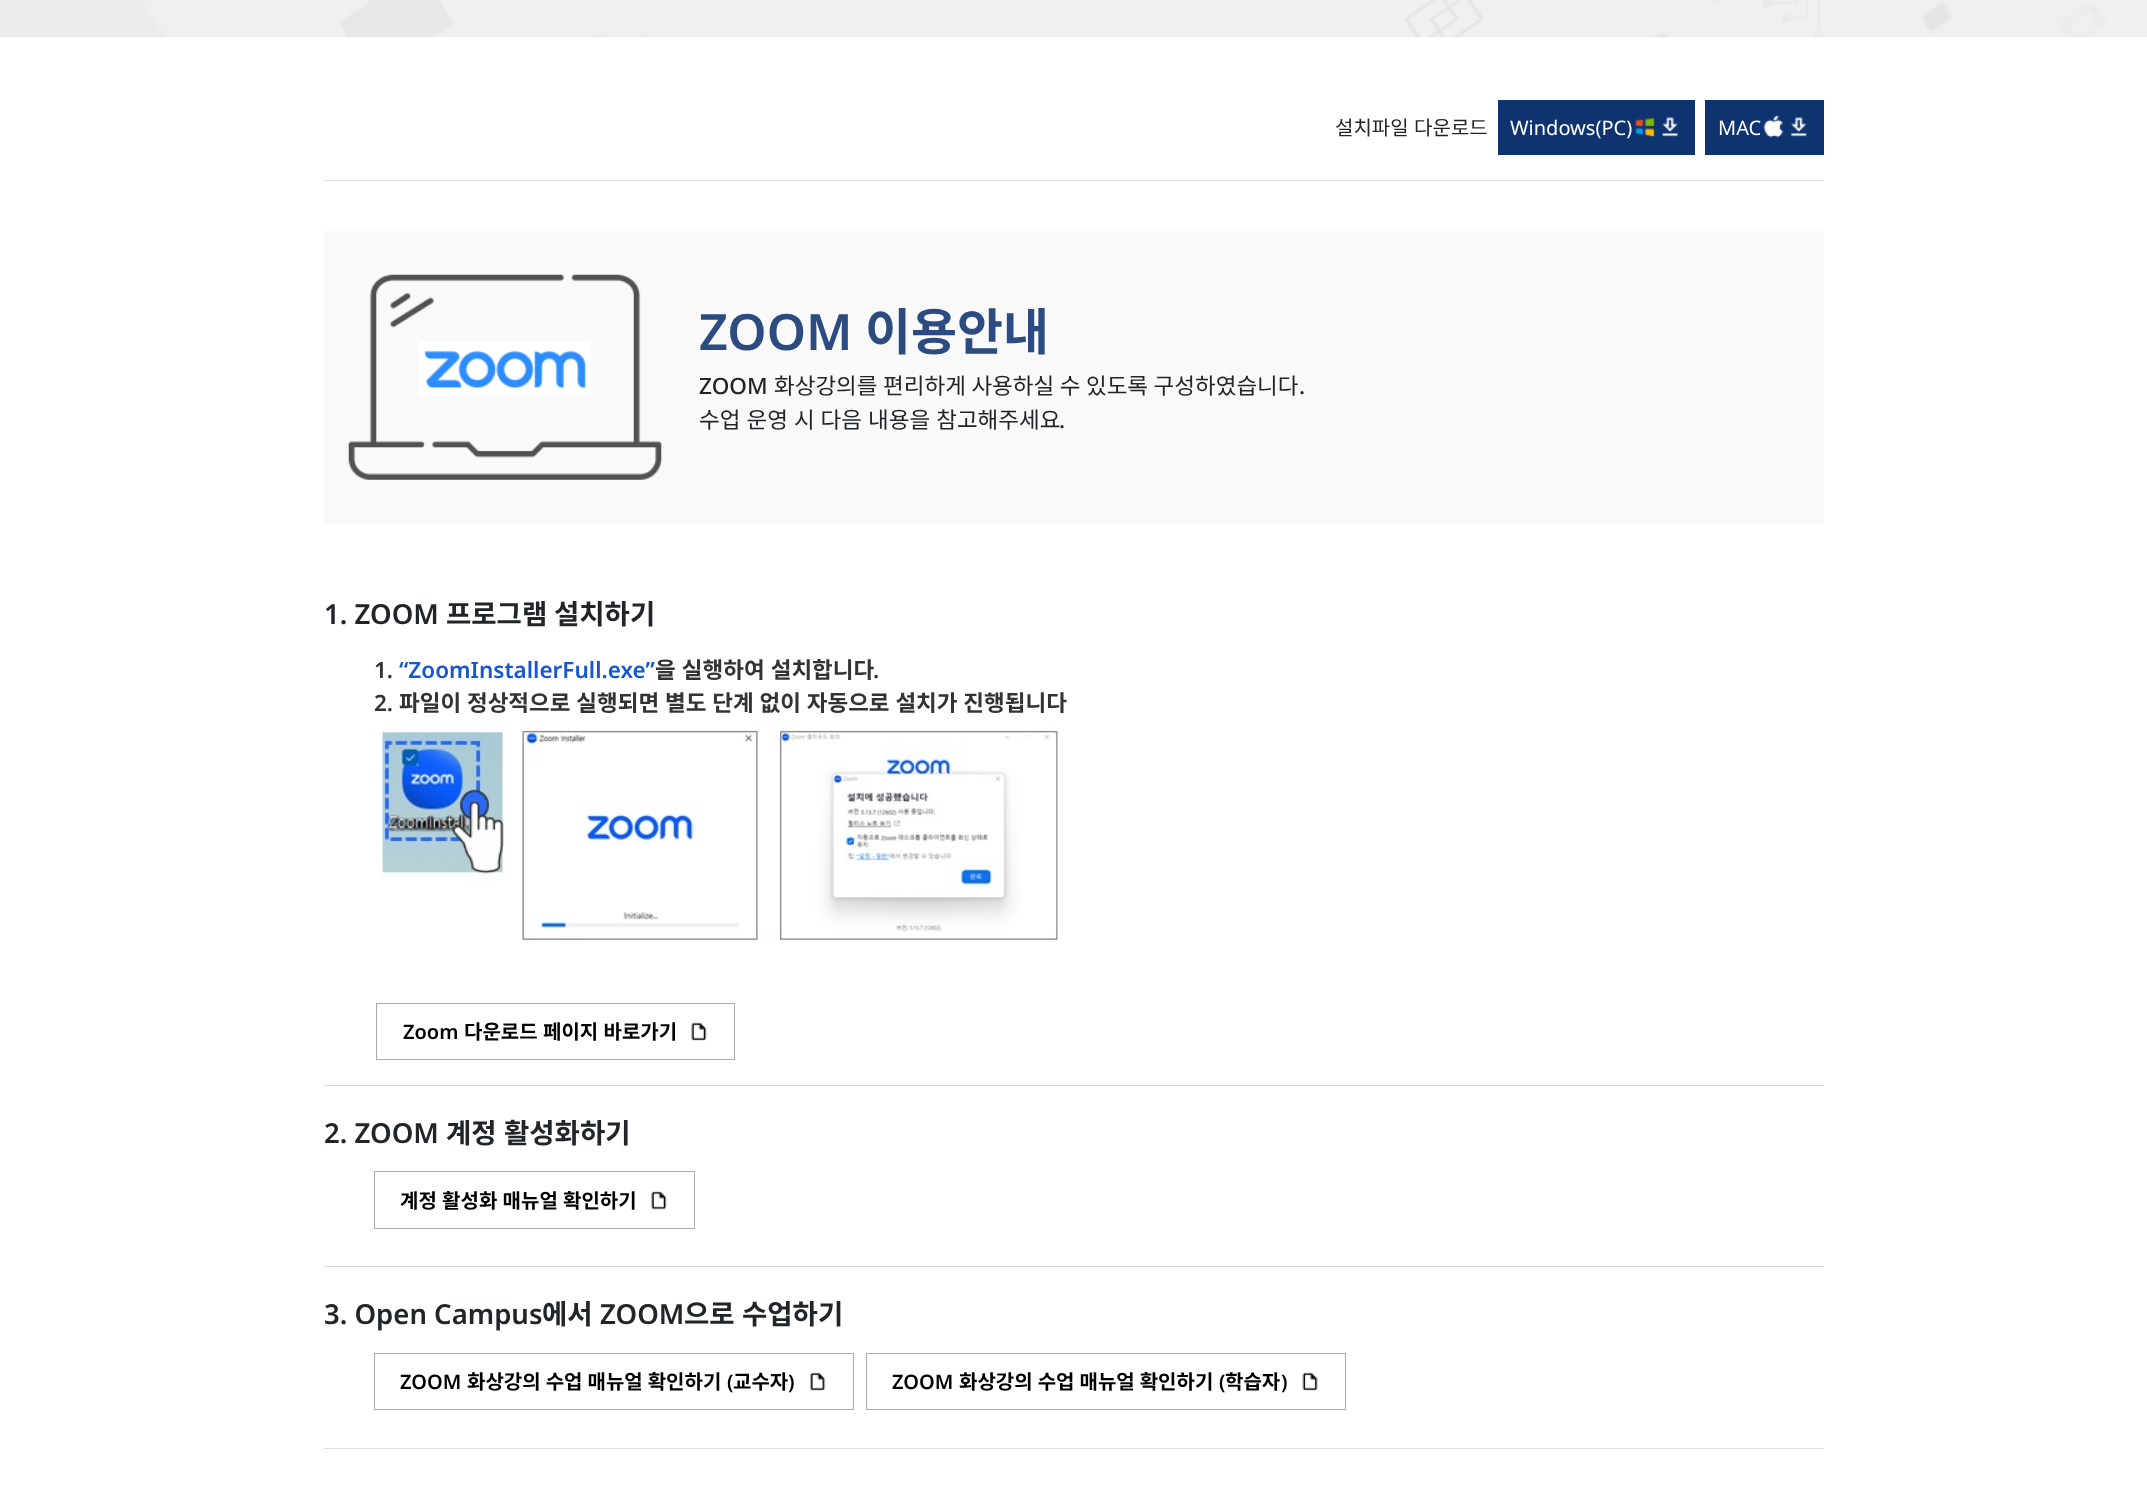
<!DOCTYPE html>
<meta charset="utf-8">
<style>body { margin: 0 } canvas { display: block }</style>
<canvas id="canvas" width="2147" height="1494"></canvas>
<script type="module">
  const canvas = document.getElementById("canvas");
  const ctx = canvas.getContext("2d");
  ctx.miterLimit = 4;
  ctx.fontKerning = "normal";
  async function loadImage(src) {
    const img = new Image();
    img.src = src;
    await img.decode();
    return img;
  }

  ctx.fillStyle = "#ffffff";
  ctx.fillRect(0, 0, 2147, 1494);
  ctx.drawImage(await loadImage("img1.png"), 0, 0, 2147, 38);
  ctx.fillStyle = "#dddddd";
  ctx.fillRect(324, 180, 1500, 1);
  ctx.wordSpacing = "1px";
  ctx.font = "20px Noto Sans KR";
  ctx.fillStyle = "#212529";
  ctx.fillText("설치파일 다운로드", 1335, 135);
  ctx.fillStyle = "#0e336f";
  ctx.fillRect(1498, 100, 197, 55);
  ctx.wordSpacing = "0px";
  ctx.font = "20px Noto Sans";
  ctx.fillStyle = "#ffffff";
  ctx.fillText("Windows(PC)", 1510, 135);
  ctx.drawImage(await loadImage("img2.png"), 1635, 117, 20, 20);
  ctx.drawImage(await loadImage("img3.png"), 1662, 117, 16, 20);
  ctx.fillStyle = "#0e336f";
  ctx.fillRect(1705, 100, 119, 55);
  ctx.fillStyle = "#ffffff";
  ctx.fillText("MAC", 1718, 135);
  ctx.drawImage(await loadImage("img4.png"), 1763, 115, 21, 23);
  ctx.drawImage(await loadImage("img5.png"), 1791, 117, 16, 20);
  ctx.fillStyle = "#f9f9f9";
  ctx.fillRect(324, 231, 1500, 293);
  ctx.drawImage(await loadImage("img6.png"), 348, 274, 314, 206);
  ctx.font = "600 50px Noto Sans";
  ctx.fillStyle = "#2c4c81";
  ctx.fillText("ZOOM", 699, 350);
  ctx.font = "bold 50px Noto Sans KR";
  ctx.fillText("이용안내", 865, 350);
  ctx.font = "500 22.5px Noto Sans";
  ctx.fillStyle = "#212529";
  ctx.fillText("ZOOM", 699, 394);
  ctx.wordSpacing = "0.5px";
  ctx.font = "22.5px Noto Sans KR";
  ctx.fillText("화상강의를 편리하게 사용하실 수 있도록 구성하였습니다", 774, 394);
  ctx.wordSpacing = "0px";
  ctx.font = "500 22.5px Noto Sans";
  ctx.fillText(".", 1299, 394);
  ctx.wordSpacing = "1px";
  ctx.font = "22.5px Noto Sans KR";
  ctx.fillText("수업 운영 시 다음 내용을 참고해주세요", 699, 428);
  ctx.wordSpacing = "0px";
  ctx.font = "500 22.5px Noto Sans";
  ctx.fillText(".", 1059, 428);
  ctx.fillStyle = "#dddddd";
  ctx.fillRect(324, 1085, 1500, 1);
  ctx.font = "600 27.5px Noto Sans";
  ctx.fillStyle = "#212529";
  ctx.fillText("1. ZOOM", 324, 624);
  ctx.font = "bold 27.5px Noto Sans KR";
  ctx.fillText("프로그램", 446, 624);
  ctx.fillText("설치하기", 554, 624);
  ctx.font = "600 22.5px Noto Sans";
  ctx.fillStyle = "#333333";
  ctx.fillText("1.", 374, 678);
  ctx.fillStyle = "#1656ce";
  ctx.fillText("“ZoomInstallerFull.exe”", 399, 678);
  ctx.wordSpacing = "1px";
  ctx.font = "bold 22.5px Noto Sans KR";
  ctx.fillStyle = "#333333";
  ctx.fillText("을 실행하여 설치합니다", 655, 678);
  ctx.wordSpacing = "0px";
  ctx.font = "600 22.5px Noto Sans";
  ctx.fillText(".", 873, 678);
  ctx.fillText("2.", 374, 711);
  ctx.wordSpacing = "0.75px";
  ctx.font = "bold 22.5px Noto Sans KR";
  ctx.fillText("파일이 정상적으로 실행되면 별도 단계 없이 자동으로 설치가 진행됩니다", 399, 711);
  ctx.drawImage(await loadImage("img7.png"), 382, 723, 676, 217);
  ctx.strokeStyle = "#aaaaaa";
  ctx.strokeRect(376.5, 1003.5, 358, 56);
  ctx.wordSpacing = "0px";
  ctx.font = "600 20px Noto Sans";
  ctx.fillStyle = "#000000";
  ctx.fillText("Zoom", 403, 1039);
  ctx.font = "bold 20px Noto Sans KR";
  ctx.fillText("다운로드", 464, 1039);
  ctx.wordSpacing = "0.75px";
  ctx.fillText("페이지 바로가기", 543, 1039);
  ctx.drawImage(await loadImage("img8.png"), 691, 1022, 16, 19);
  ctx.fillStyle = "#dddddd";
  ctx.fillRect(324, 1266, 1500, 1);
  ctx.wordSpacing = "0px";
  ctx.font = "600 27.5px Noto Sans";
  ctx.fillStyle = "#212529";
  ctx.fillText("2. ZOOM", 324, 1143);
  ctx.font = "bold 27.5px Noto Sans KR";
  ctx.fillText("계정", 446, 1143);
  ctx.fillText("활성화하기", 504, 1143);
  ctx.strokeRect(374.5, 1171.5, 320, 57);
  ctx.wordSpacing = "0.75px";
  ctx.font = "bold 20px Noto Sans KR";
  ctx.fillStyle = "#000000";
  ctx.fillText("계정 활성화 매뉴얼 확인하기", 400, 1208);
  ctx.drawImage(await loadImage("img9.png"), 651, 1191, 16, 19);
  ctx.fillStyle = "#dddddd";
  ctx.fillRect(324, 1448, 1500, 1);
  ctx.wordSpacing = "0px";
  ctx.font = "600 27.5px Noto Sans";
  ctx.fillStyle = "#212529";
  ctx.fillText("3. Open Campus", 324, 1324);
  ctx.font = "bold 27.5px Noto Sans KR";
  ctx.fillText("에서", 542, 1324);
  ctx.font = "600 27.5px Noto Sans";
  ctx.fillText("ZOOM", 600, 1324);
  ctx.font = "bold 27.5px Noto Sans KR";
  ctx.fillText("으로", 684, 1324);
  ctx.fillText("수업하기", 742, 1324);
  ctx.strokeRect(374.5, 1353.5, 479, 56);
  ctx.font = "600 20px Noto Sans";
  ctx.fillStyle = "#000000";
  ctx.fillText("ZOOM", 400, 1389);
  ctx.wordSpacing = "0.5px";
  ctx.font = "bold 20px Noto Sans KR";
  ctx.fillText("화상강의 수업 매뉴얼 확인하기", 467, 1389);
  ctx.wordSpacing = "0px";
  ctx.font = "600 20px Noto Sans";
  ctx.fillText("(", 727, 1389);
  ctx.font = "bold 20px Noto Sans KR";
  ctx.fillText("교수자", 733, 1389);
  ctx.font = "600 20px Noto Sans";
  ctx.fillText(")", 788, 1389);
  ctx.drawImage(await loadImage("img10.png"), 809, 1372, 17, 19);
  ctx.strokeRect(866.5, 1353.5, 479, 56);
  ctx.fillText("ZOOM", 892, 1389);
  ctx.wordSpacing = "0.5px";
  ctx.font = "bold 20px Noto Sans KR";
  ctx.fillText("화상강의 수업 매뉴얼 확인하기", 959, 1389);
  ctx.wordSpacing = "0px";
  ctx.font = "600 20px Noto Sans";
  ctx.fillText("(", 1219, 1389);
  ctx.font = "bold 20px Noto Sans KR";
  ctx.fillText("학습자", 1225, 1389);
  ctx.font = "600 20px Noto Sans";
  ctx.fillText(")", 1281, 1389);
  ctx.drawImage(await loadImage("img11.png"), 1302, 1372, 16, 19);
</script>
